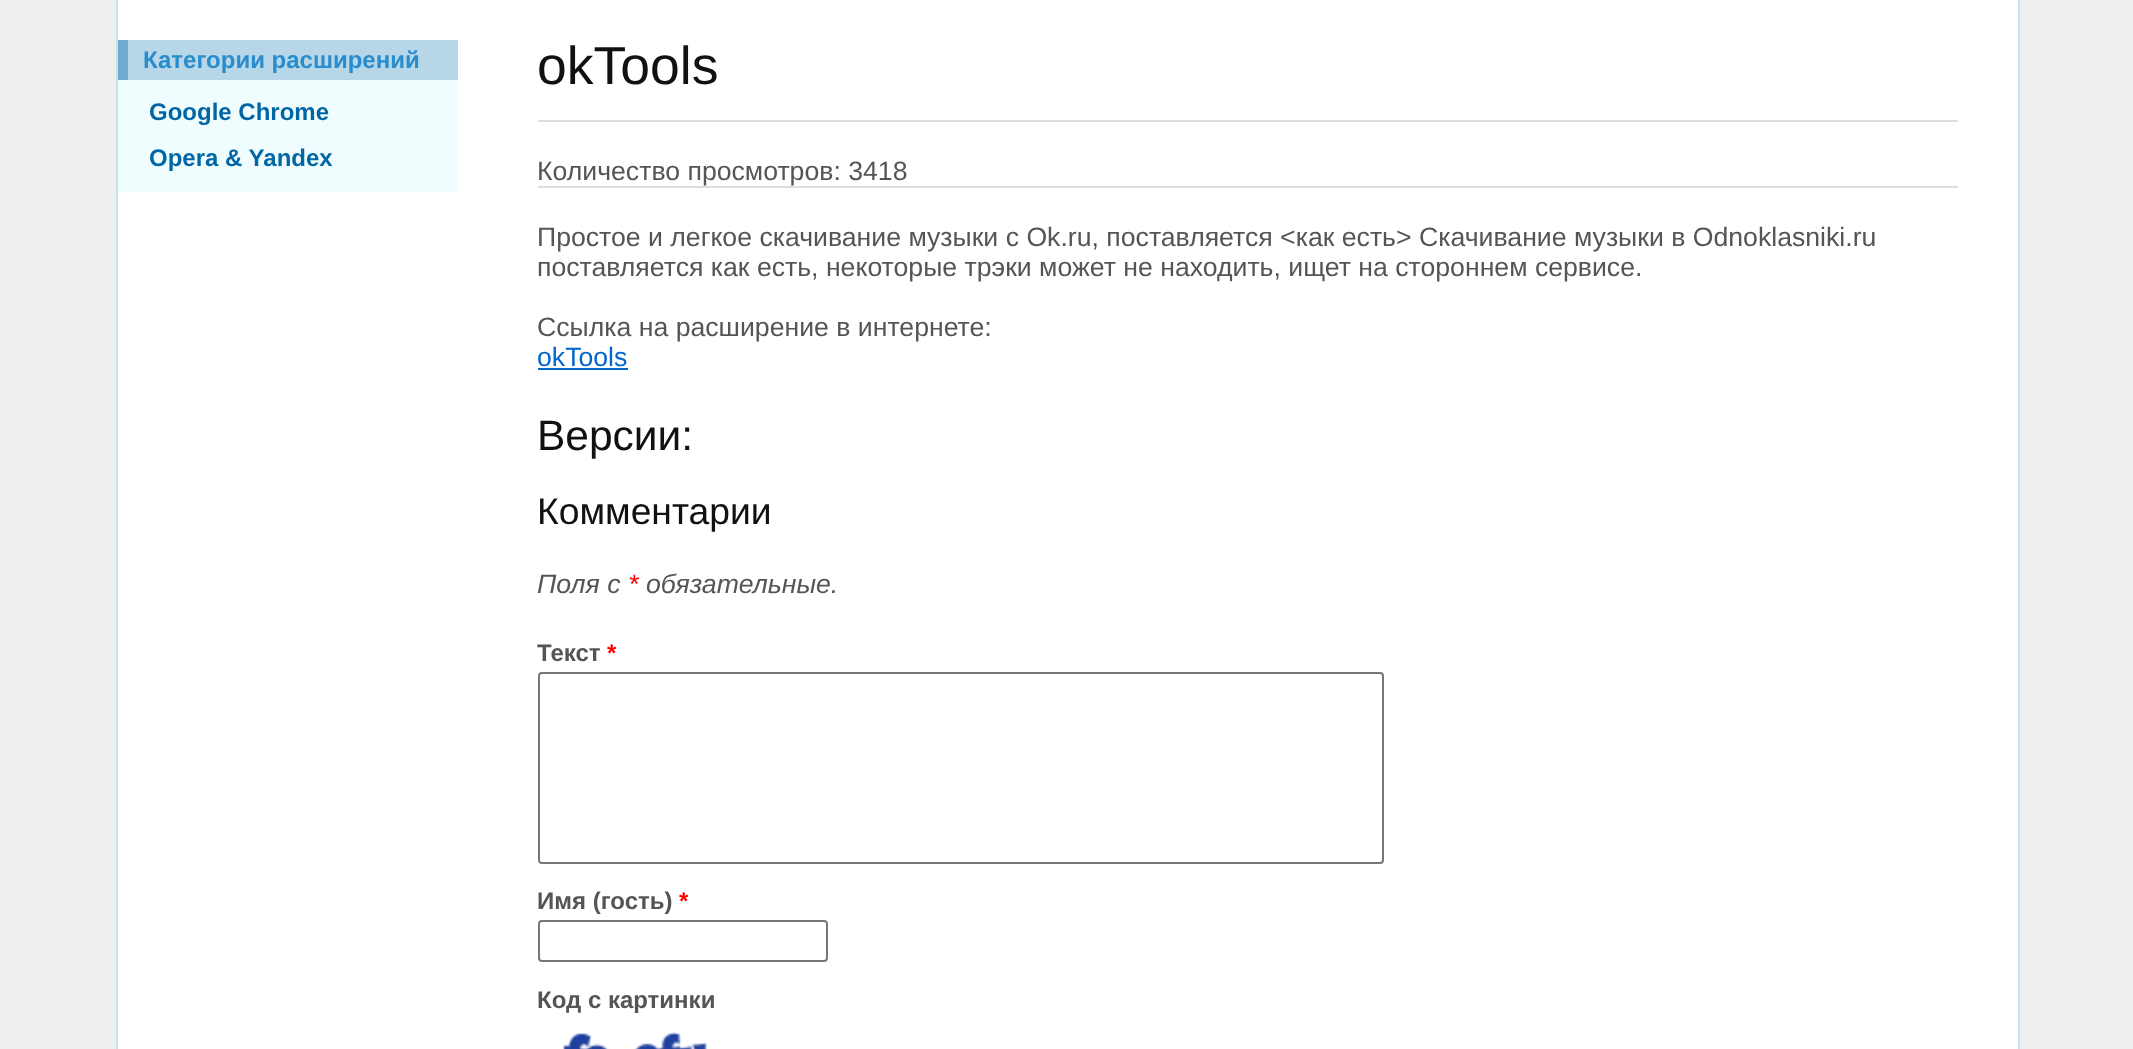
<!DOCTYPE html>
<meta charset="utf-8">
<style>body { margin: 0 } canvas { display: block }</style>
<canvas id="canvas" width="2133" height="1049"></canvas>
<script type="module">
  const canvas = document.getElementById("canvas");
  const ctx = canvas.getContext("2d");
  ctx.miterLimit = 4;
  ctx.fontKerning = "normal";
  async function loadImage(src) {
    const img = new Image();
    img.src = src;
    await img.decode();
    return img;
  }

  ctx.fillStyle = "#efefef";
  ctx.fillRect(0, 0, 2133, 1049);
  ctx.fillStyle = "#ffffff";
  ctx.beginPath();
  ctx.rect(117, -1, 1902, 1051);
  ctx.fill();
  ctx.strokeStyle = "#c9e0ed";
  ctx.lineWidth = 2;
  ctx.stroke();
  ctx.fillStyle = "#b7d6e7";
  ctx.fillRect(128, 40, 330, 40);
  ctx.fillStyle = "#6faccf";
  ctx.fillRect(118, 40, 10, 40);
  ctx.font = "bold 24px Liberation Sans";
  ctx.fillStyle = "#298dcd";
  ctx.fillText("Категории расширений", 143, 68);
  ctx.fillStyle = "#effdff";
  ctx.fillRect(118, 80, 340, 112);
  ctx.fillStyle = "#0066a4";
  ctx.fillText("Google Chrome", 149, 120);
  ctx.fillText("Opera & Yandex", 149, 166);
  ctx.font = "53.5px Liberation Sans";
  ctx.fillStyle = "#111111";
  ctx.fillText("okTools", 537, 84);
  ctx.fillStyle = "#dddddd";
  ctx.fillRect(538, 120, 1420, 2);
  ctx.font = "26.65px Liberation Sans";
  ctx.fillStyle = "#555555";
  ctx.fillText("Количество просмотров: 3418", 537, 180);
  ctx.fillStyle = "#dddddd";
  ctx.fillRect(538, 186, 1420, 2);
  ctx.fillStyle = "#555555";
  ctx.fillText("Простое и легкое скачивание музыки с Ok.ru, поставляется <как есть>", 537, 246);
  ctx.fillText("Скачивание музыки в Odnoklasniki.ru", 1419, 246);
  ctx.fillText("поставляется как есть, некоторые трэки может не находить, ищет на стороннем сервисе.", 537, 276);
  ctx.fillText("Ссылка на расширение в интернете:", 537, 336);
  ctx.fillStyle = "#0066cc";
  ctx.fillText("okTools", 537, 366);
  ctx.fillRect(538, 368, 90, 2);
  ctx.font = "42.5px Liberation Sans";
  ctx.fillStyle = "#111111";
  ctx.fillText("Версии:", 537, 450);
  ctx.font = "37.25px Liberation Sans";
  ctx.fillText("Комментарии", 537, 524);
  ctx.font = "italic 26.65px Liberation Sans";
  ctx.fillStyle = "#555555";
  ctx.fillText("Поля с", 537, 593);
  ctx.fillStyle = "#ff0000";
  ctx.fillText("*", 628, 593);
  ctx.fillStyle = "#555555";
  ctx.fillText("обязательные.", 646, 593);
  ctx.font = "bold 24px Liberation Sans";
  ctx.fillText("Текст", 537, 661);
  ctx.fillStyle = "#ff0000";
  ctx.fillText("*", 607, 661);
  ctx.beginPath();
  ctx.roundRect(539, 673, 844, 190, 3);
  ctx.strokeStyle = "#767676";
  ctx.stroke();
  ctx.fillStyle = "#555555";
  ctx.fillText("Имя (гость)", 537, 909);
  ctx.fillStyle = "#ff0000";
  ctx.fillText("*", 679, 909);
  ctx.beginPath();
  ctx.roundRect(539, 921, 288, 40, 3);
  ctx.stroke();
  ctx.fillStyle = "#555555";
  ctx.fillText("Код с картинки", 537, 1008);
  ctx.drawImage(await loadImage("img1.png"), 563, 1031, 144, 18);
</script>
